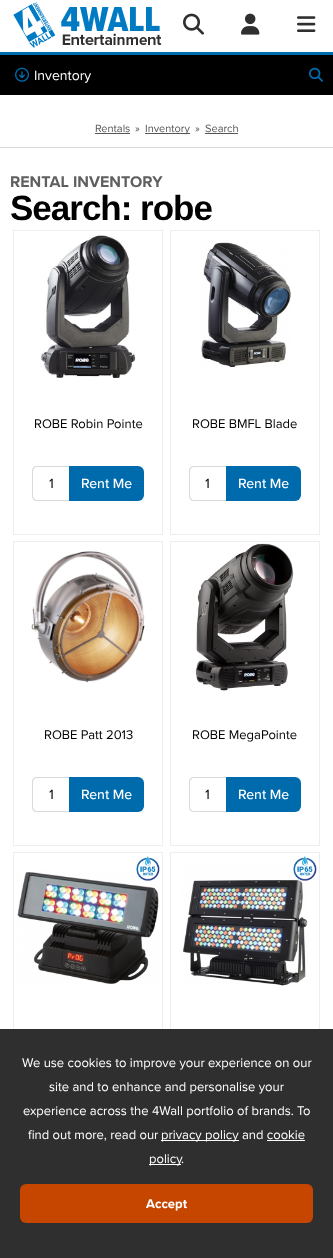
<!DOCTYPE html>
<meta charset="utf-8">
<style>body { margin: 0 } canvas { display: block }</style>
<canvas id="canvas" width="333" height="1258"></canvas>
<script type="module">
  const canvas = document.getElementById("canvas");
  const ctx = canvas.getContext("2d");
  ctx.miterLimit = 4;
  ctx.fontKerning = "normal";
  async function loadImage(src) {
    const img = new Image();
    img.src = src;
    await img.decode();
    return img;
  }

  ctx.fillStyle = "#ffffff";
  ctx.fillRect(0, 0, 333, 1258);
  ctx.fillStyle = "#006daf";
  ctx.fillRect(0, 52, 333, 3);
  ctx.drawImage(await loadImage("img1.png"), 13, 2, 149, 46);
  ctx.drawImage(await loadImage("img2.png"), 183, 13, 21, 22);
  ctx.drawImage(await loadImage("img3.png"), 241, 13, 19, 22);
  ctx.drawImage(await loadImage("img4.png"), 297, 16, 19, 16);
  ctx.fillStyle = "#000000";
  ctx.fillRect(0, 55, 333, 40);
  ctx.drawImage(await loadImage("img5.png"), 15, 67, 14, 15);
  ctx.font = "14px Proxima Nova";
  ctx.fillStyle = "#ffffff";
  ctx.fillText("Inventory", 34, 80);
  ctx.drawImage(await loadImage("img6.png"), 309, 67, 14, 15);
  ctx.fillStyle = "#dadada";
  ctx.fillRect(0, 147, 333, 1);
  ctx.font = "11px Proxima Nova";
  ctx.fillStyle = "#565656";
  ctx.fillText("Rentals", 95, 132);
  ctx.fillRect(95, 133, 35, 1);
  ctx.fillText("»", 135, 132);
  ctx.fillRect(145, 133, 45, 1);
  ctx.fillText("Inventory", 145, 132);
  ctx.fillText("»", 195, 132);
  ctx.fillText("Search", 205, 132);
  ctx.fillRect(205, 133, 33, 1);
  ctx.font = "bold 16px Proxima Nova";
  ctx.fillStyle = "#5f5f5f";
  ctx.fillText("RENTAL INVENTORY", 10, 187);
  ctx.letterSpacing = "-1px";
  ctx.font = "bold 35px Liberation Sans";
  ctx.fillStyle = "#000000";
  ctx.fillText("Search: robe", 10, 220);
  ctx.strokeStyle = "#eeeeee";
  ctx.strokeRect(13.5, 230.5, 149, 304);
  ctx.drawImage(await loadImage("img7.png"), 40, 235, 96, 143);
  ctx.letterSpacing = "0px";
  ctx.font = "13px Proxima Nova";
  ctx.fillText("ROBE Robin Pointe", 34, 428);
  ctx.fillStyle = "#dadada";
  ctx.beginPath();
  ctx.moveTo(37, 466);
  ctx.lineTo(69, 466);
  ctx.lineTo(69, 501);
  ctx.lineTo(37, 501);
  ctx.bezierCurveTo(34, 501, 32, 499, 32, 496);
  ctx.lineTo(32, 471);
  ctx.bezierCurveTo(32, 468, 34, 466, 37, 466);
  ctx.closePath();
  ctx.moveTo(37, 467);
  ctx.lineTo(69, 467);
  ctx.lineTo(69, 500);
  ctx.lineTo(37, 500);
  ctx.bezierCurveTo(35, 500, 33, 498, 33, 496);
  ctx.lineTo(33, 471);
  ctx.bezierCurveTo(33, 469, 35, 467, 37, 467);
  ctx.closePath();
  ctx.fill("evenodd");
  ctx.font = "14px Proxima Nova";
  ctx.fillStyle = "#000000";
  ctx.fillText("1", 49, 488);
  ctx.fillStyle = "#006bac";
  ctx.beginPath();
  ctx.roundRect(69, 466, 75, 35, [0, 6, 6, 0]);
  ctx.fill();
  ctx.font = "500 14px Proxima Nova";
  ctx.fillStyle = "#ffffff";
  ctx.fillText("Rent Me", 81, 488);
  ctx.strokeRect(170.5, 230.5, 149, 304);
  ctx.drawImage(await loadImage("img8.png"), 201, 242, 90, 125);
  ctx.font = "13px Proxima Nova";
  ctx.fillStyle = "#000000";
  ctx.fillText("ROBE BMFL Blade", 192, 428);
  ctx.fillStyle = "#dadada";
  ctx.beginPath();
  ctx.moveTo(194, 466);
  ctx.lineTo(226, 466);
  ctx.lineTo(226, 501);
  ctx.lineTo(194, 501);
  ctx.bezierCurveTo(191, 501, 189, 499, 189, 496);
  ctx.lineTo(189, 471);
  ctx.bezierCurveTo(189, 468, 191, 466, 194, 466);
  ctx.closePath();
  ctx.moveTo(194, 467);
  ctx.lineTo(226, 467);
  ctx.lineTo(226, 500);
  ctx.lineTo(194, 500);
  ctx.bezierCurveTo(192, 500, 190, 498, 190, 496);
  ctx.lineTo(190, 471);
  ctx.bezierCurveTo(190, 469, 192, 467, 194, 467);
  ctx.closePath();
  ctx.fill("evenodd");
  ctx.font = "14px Proxima Nova";
  ctx.fillStyle = "#000000";
  ctx.fillText("1", 205, 488);
  ctx.fillStyle = "#006bac";
  ctx.beginPath();
  ctx.roundRect(226, 466, 75, 35, [0, 6, 6, 0]);
  ctx.fill();
  ctx.font = "500 14px Proxima Nova";
  ctx.fillStyle = "#ffffff";
  ctx.fillText("Rent Me", 238, 488);
  ctx.strokeRect(13.5, 541.5, 149, 304);
  ctx.drawImage(await loadImage("img9.png"), 31, 551, 114, 132);
  ctx.font = "13px Proxima Nova";
  ctx.fillStyle = "#000000";
  ctx.fillText("ROBE Patt 2013", 44, 739);
  ctx.fillStyle = "#dadada";
  ctx.beginPath();
  ctx.moveTo(37, 777);
  ctx.lineTo(69, 777);
  ctx.lineTo(69, 812);
  ctx.lineTo(37, 812);
  ctx.bezierCurveTo(34, 812, 32, 810, 32, 807);
  ctx.lineTo(32, 782);
  ctx.bezierCurveTo(32, 779, 34, 777, 37, 777);
  ctx.closePath();
  ctx.moveTo(37, 778);
  ctx.lineTo(69, 778);
  ctx.lineTo(69, 811);
  ctx.lineTo(37, 811);
  ctx.bezierCurveTo(35, 811, 33, 809, 33, 807);
  ctx.lineTo(33, 782);
  ctx.bezierCurveTo(33, 780, 35, 778, 37, 778);
  ctx.closePath();
  ctx.fill("evenodd");
  ctx.font = "14px Proxima Nova";
  ctx.fillStyle = "#000000";
  ctx.fillText("1", 49, 799);
  ctx.fillStyle = "#006bac";
  ctx.beginPath();
  ctx.roundRect(69, 777, 75, 35, [0, 6, 6, 0]);
  ctx.fill();
  ctx.font = "500 14px Proxima Nova";
  ctx.fillStyle = "#ffffff";
  ctx.fillText("Rent Me", 81, 799);
  ctx.strokeRect(170.5, 541.5, 149, 304);
  ctx.drawImage(await loadImage("img10.png"), 195, 543, 99, 148);
  ctx.font = "13px Proxima Nova";
  ctx.fillStyle = "#000000";
  ctx.fillText("ROBE MegaPointe", 192, 739);
  ctx.fillStyle = "#dadada";
  ctx.beginPath();
  ctx.moveTo(194, 777);
  ctx.lineTo(226, 777);
  ctx.lineTo(226, 812);
  ctx.lineTo(194, 812);
  ctx.bezierCurveTo(191, 812, 189, 810, 189, 807);
  ctx.lineTo(189, 782);
  ctx.bezierCurveTo(189, 779, 191, 777, 194, 777);
  ctx.closePath();
  ctx.moveTo(194, 778);
  ctx.lineTo(226, 778);
  ctx.lineTo(226, 811);
  ctx.lineTo(194, 811);
  ctx.bezierCurveTo(192, 811, 190, 809, 190, 807);
  ctx.lineTo(190, 782);
  ctx.bezierCurveTo(190, 780, 192, 778, 194, 778);
  ctx.closePath();
  ctx.fill("evenodd");
  ctx.font = "14px Proxima Nova";
  ctx.fillStyle = "#000000";
  ctx.fillText("1", 205, 799);
  ctx.fillStyle = "#006bac";
  ctx.beginPath();
  ctx.roundRect(226, 777, 75, 35, [0, 6, 6, 0]);
  ctx.fill();
  ctx.font = "500 14px Proxima Nova";
  ctx.fillStyle = "#ffffff";
  ctx.fillText("Rent Me", 238, 799);
  ctx.strokeRect(13.5, 852.5, 149, 304);
  ctx.drawImage(await loadImage("img11.png"), 17, 856, 143, 128);
  ctx.strokeRect(170.5, 852.5, 149, 304);
  ctx.drawImage(await loadImage("img12.png"), 182, 856, 135, 130);
  ctx.fillStyle = "#2f2f2f";
  ctx.fillRect(0, 1029, 333, 229);
  ctx.font = "13px Proxima Nova";
  ctx.fillStyle = "#ffffff";
  ctx.fillText("We use cookies to improve your experience on our", 22, 1067);
  ctx.fillText("site and to enhance and personalise your", 49, 1091);
  ctx.fillText("experience across the 4Wall portfolio of brands. To", 23, 1115);
  ctx.fillText("find out more, read our", 28, 1139);
  ctx.fillRect(161, 1140, 78, 1);
  ctx.fillText("privacy policy and cookie", 161, 1139);
  ctx.fillRect(267, 1140, 38, 1);
  ctx.fillRect(149, 1164, 32, 1);
  ctx.fillText("policy", 149, 1163);
  ctx.fillText(".", 181, 1163);
  ctx.fillStyle = "#c64600";
  ctx.beginPath();
  ctx.roundRect(20, 1184, 293, 39, 6);
  ctx.fill();
  ctx.font = "bold 13px Proxima Nova";
  ctx.fillStyle = "#ffffff";
  ctx.fillText("Accept", 146, 1208);
</script>
